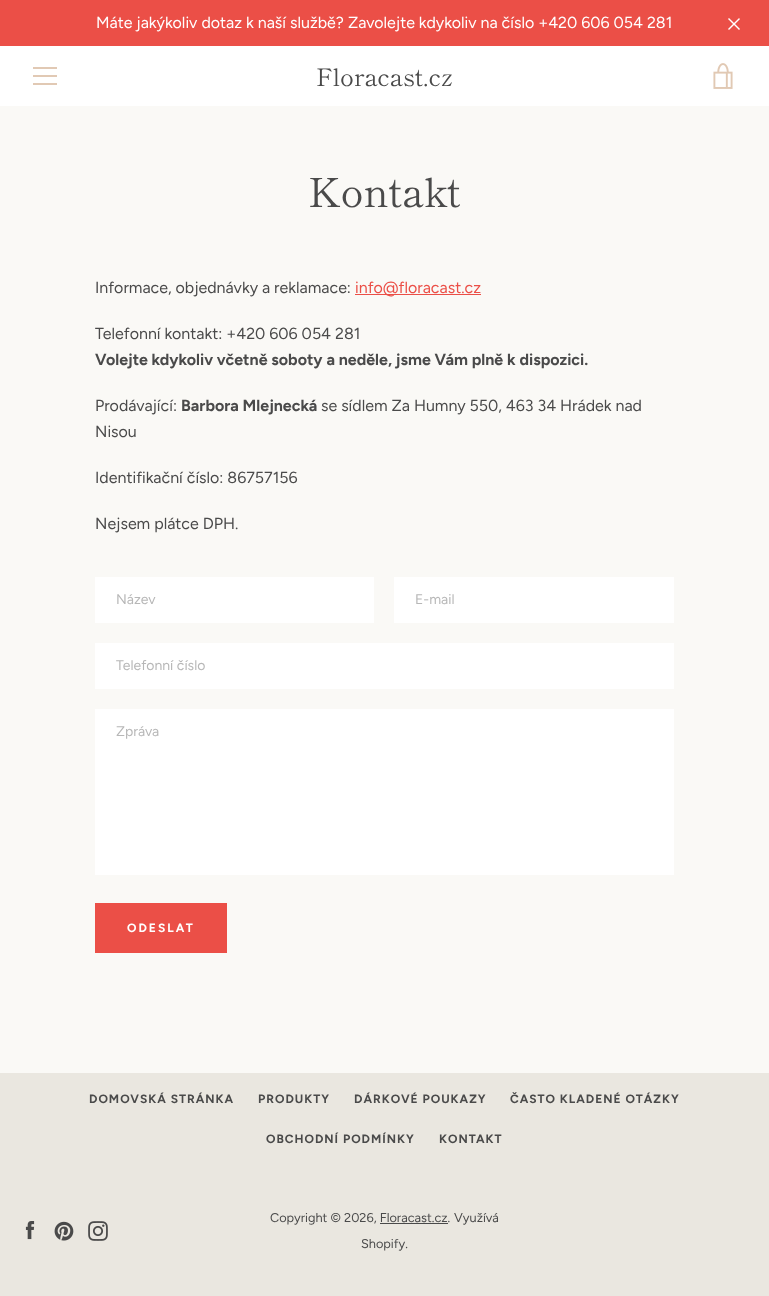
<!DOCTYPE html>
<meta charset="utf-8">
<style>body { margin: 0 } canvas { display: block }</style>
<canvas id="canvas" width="769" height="1296"></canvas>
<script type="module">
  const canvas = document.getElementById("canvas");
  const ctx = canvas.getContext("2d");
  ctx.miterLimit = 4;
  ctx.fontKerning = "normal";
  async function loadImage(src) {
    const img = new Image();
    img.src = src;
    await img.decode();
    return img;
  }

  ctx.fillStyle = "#eae7e0";
  ctx.fillRect(0, 0, 769, 1296);
  ctx.fillStyle = "#ffffff";
  ctx.fillRect(0, 46, 769, 60);
  ctx.fillStyle = "#eb4f47";
  ctx.fillRect(0, 0, 769, 46);
  ctx.font = "16px Figtree";
  ctx.fillStyle = "#ffffff";
  ctx.fillText("Máte jakýkoliv dotaz k naší službě? Zavolejte kdykoliv na číslo +420 606 054 281", 96, 28);
  ctx.drawImage(await loadImage("img1.png"), 728, 18, 12, 12);
  ctx.fillStyle = "#e1c9b4";
  ctx.fillRect(33, 67, 24, 2);
  ctx.fillRect(33, 75, 24, 2);
  ctx.fillRect(33, 83, 24, 2);
  ctx.font = "24px Shippori Mincho";
  ctx.fillStyle = "#4a4a4a";
  ctx.fillText("Floracast.cz", 316, 86);
  ctx.drawImage(await loadImage("img2.png"), 713, 63, 20, 26);
  ctx.fillStyle = "#faf9f6";
  ctx.fillRect(0, 106, 769, 967);
  ctx.font = "40px Shippori Mincho";
  ctx.fillStyle = "#4a4a4a";
  ctx.fillText("Kontakt", 308, 207);
  ctx.font = "16px Figtree";
  ctx.fillText("Informace, objednávky a reklamace:", 95, 293);
  ctx.fillStyle = "#eb4f47";
  ctx.fillText("info@floracast.cz", 355, 293);
  ctx.fillRect(355, 294, 126, 1);
  ctx.fillStyle = "#4a4a4a";
  ctx.fillText("Telefonní kontakt: +420 606 054 281", 95, 339);
  ctx.font = "bold 16px Figtree";
  ctx.fillText("Volejte kdykoliv včetně soboty a neděle, jsme Vám plně k dispozici.", 95, 365);
  ctx.font = "16px Figtree";
  ctx.fillText("Prodávající:", 95, 411);
  ctx.font = "bold 16px Figtree";
  ctx.fillText("Barbora Mlejnecká", 181, 411);
  ctx.font = "16px Figtree";
  ctx.fillText("se sídlem Za Humny 550, 463 34 Hrádek nad", 321, 411);
  ctx.fillText("Nisou", 95, 437);
  ctx.fillText("Identifikační číslo: 86757156", 95, 483);
  ctx.fillText("Nejsem plátce DPH.", 95, 529);
  ctx.fillStyle = "#ffffff";
  ctx.fillRect(95, 577, 279, 46);
  ctx.font = "14px Figtree";
  ctx.fillStyle = "#b7b7b7";
  ctx.fillText("Název", 116, 604);
  ctx.fillStyle = "#ffffff";
  ctx.fillRect(394, 577, 280, 46);
  ctx.fillStyle = "#b7b7b7";
  ctx.fillText("E-mail", 415, 604);
  ctx.fillStyle = "#ffffff";
  ctx.fillRect(95, 643, 579, 46);
  ctx.fillStyle = "#b7b7b7";
  ctx.fillText("Telefonní číslo", 116, 670);
  ctx.fillStyle = "#ffffff";
  ctx.fillRect(95, 709, 579, 166);
  ctx.fillStyle = "#b7b7b7";
  ctx.fillText("Zpráva", 116, 736);
  ctx.fillStyle = "#eb4f47";
  ctx.fillRect(95, 903, 132, 50);
  ctx.letterSpacing = "2px";
  ctx.font = "bold 12px Figtree";
  ctx.fillStyle = "#ffffff";
  ctx.fillText("ODESLAT", 127, 932);
  ctx.letterSpacing = "1px";
  ctx.fillStyle = "#4a4a4a";
  ctx.fillText("DOMOVSKÁ STRÁNKA", 89, 1103);
  ctx.fillText("PRODUKTY", 258, 1103);
  ctx.fillText("DÁRKOVÉ POUKAZY", 354, 1103);
  ctx.fillText("ČASTO KLADENÉ OTÁZKY", 510, 1103);
  ctx.fillText("OBCHODNÍ PODMÍNKY", 266, 1143);
  ctx.fillText("KONTAKT", 439, 1143);
  ctx.drawImage(await loadImage("img3.png"), 25, 1221, 10, 19);
  ctx.drawImage(await loadImage("img4.png"), 54, 1221, 20, 20);
  ctx.drawImage(await loadImage("img5.png"), 88, 1221, 20, 20);
  ctx.letterSpacing = "0px";
  ctx.font = "12.75px Figtree";
  ctx.fillText("Copyright © 2026, Floracast.cz.", 270, 1222);
  ctx.fillRect(380, 1223, 68, 1);
  ctx.fillText("Využívá", 454, 1222);
  ctx.fillText("Shopify.", 361, 1248);
</script>
